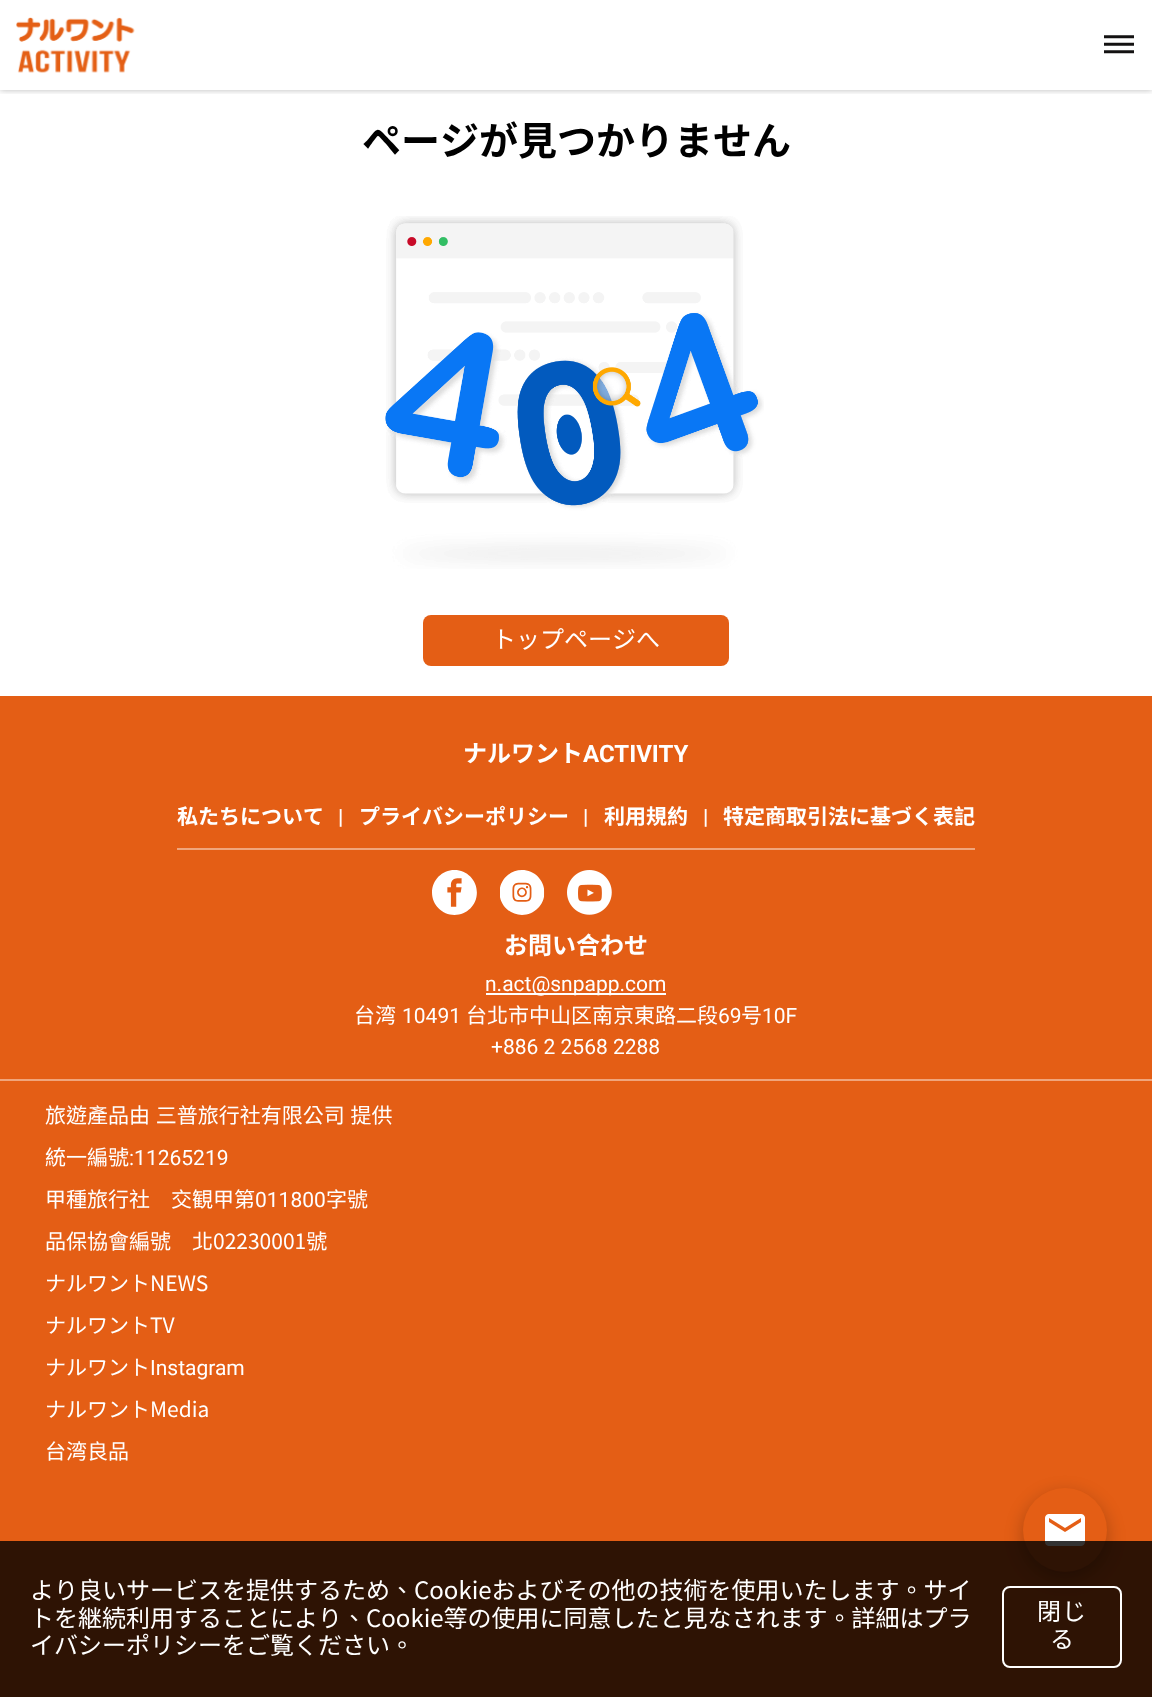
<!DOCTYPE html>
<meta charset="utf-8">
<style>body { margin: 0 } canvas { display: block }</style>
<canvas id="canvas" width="1152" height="1697"></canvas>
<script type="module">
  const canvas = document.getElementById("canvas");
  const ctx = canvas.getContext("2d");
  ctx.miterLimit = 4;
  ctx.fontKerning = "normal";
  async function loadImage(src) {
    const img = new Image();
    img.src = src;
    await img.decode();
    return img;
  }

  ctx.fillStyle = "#ffffff";
  ctx.fillRect(0, 0, 1152, 1697);
  ctx.save();
  ctx.beginPath();
  ctx.rect(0, 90, 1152, 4);
  ctx.clip();
  ctx.fillStyle = "rgba(0, 0, 0, 0.28)";
  ctx.filter = "blur(3px)";
  ctx.beginPath();
  ctx.rect(0, 0, 1152, 90);
  ctx.fill();
  ctx.filter = "none";
  ctx.restore();
  ctx.drawImage(await loadImage("img1.png"), 16, 17, 119, 56);
  ctx.drawImage(await loadImage("img2.png"), 1104, 35, 30, 19);
  ctx.font = "bold 39px Noto Sans TC";
  ctx.fillStyle = "#000000";
  ctx.fillText("ページが見つかりません", 362, 155);
  ctx.drawImage(await loadImage("img3.png"), 385, 216, 379, 353);
  ctx.fillStyle = "#e45e15";
  ctx.beginPath();
  ctx.roundRect(423, 615, 306, 51, 8);
  ctx.fill();
  ctx.font = "24px Noto Sans TC";
  ctx.fillStyle = "#ffffff";
  ctx.fillText("トップページへ", 492, 648);
  ctx.fillStyle = "#e45e15";
  ctx.fillRect(0, 696, 1152, 1001);
  ctx.font = "bold 24px Noto Sans TC";
  ctx.fillStyle = "#ffffff";
  ctx.fillText("ナルワント", 463, 762);
  ctx.font = "bold 24px Roboto";
  ctx.fillText("ACTIVITY", 583, 762);
  ctx.font = "bold 21px Noto Sans TC";
  ctx.fillText("私たちについて", 177, 824);
  ctx.font = "bold 21px Roboto";
  ctx.fillText("|", 338, 824);
  ctx.font = "bold 21px Noto Sans TC";
  ctx.fillText("プライバシーポリシー", 359, 824);
  ctx.font = "bold 21px Roboto";
  ctx.fillText("|", 583, 824);
  ctx.font = "bold 21px Noto Sans TC";
  ctx.fillText("利用規約", 604, 824);
  ctx.font = "bold 21px Roboto";
  ctx.fillText("|", 703, 824);
  ctx.font = "bold 21px Noto Sans TC";
  ctx.fillText("特定商取引法に基づく表記", 723, 824);
  ctx.fillStyle = "#f0a57c";
  ctx.fillRect(177, 848, 798, 2);
  ctx.drawImage(await loadImage("img4.png"), 432, 870, 45, 45);
  ctx.drawImage(await loadImage("img5.png"), 500, 870, 45, 45);
  ctx.drawImage(await loadImage("img6.png"), 567, 870, 45, 45);
  ctx.font = "bold 24px Noto Sans TC";
  ctx.fillStyle = "#ffffff";
  ctx.fillText("お問い合わせ", 504, 954);
  ctx.fillRect(486, 993, 180, 2);
  ctx.font = "21px Roboto";
  ctx.fillText("n.act@snpapp.com", 485, 991);
  ctx.font = "21px Noto Sans TC";
  ctx.fillText("台", 354, 1023);
  ctx.font = "21px Noto Sans JP";
  ctx.fillText("湾", 375, 1023);
  ctx.font = "21px Roboto";
  ctx.fillText("10491", 402, 1023);
  ctx.font = "21px Noto Sans TC";
  ctx.fillText("台北市中山", 466, 1023);
  ctx.font = "21px Noto Sans JP";
  ctx.fillText("区", 571, 1023);
  ctx.font = "21px Noto Sans TC";
  ctx.fillText("南京東路二段", 592, 1023);
  ctx.font = "21px Roboto";
  ctx.fillText("69", 718, 1023);
  ctx.font = "21px Noto Sans TC";
  ctx.fillText("号", 741, 1023);
  ctx.font = "21px Roboto";
  ctx.fillText("10F", 762, 1023);
  ctx.fillText("+886 2 2568 2288", 491, 1054);
  ctx.fillStyle = "#f0a57c";
  ctx.fillRect(0, 1079, 1152, 2);
  ctx.wordSpacing = "1px";
  ctx.font = "21px Noto Sans TC";
  ctx.fillStyle = "#ffffff";
  ctx.fillText("旅遊產品由 三普旅行社有限公司 提供", 45, 1123);
  ctx.wordSpacing = "0px";
  ctx.fillText("統一編號", 45, 1165);
  ctx.font = "21px Roboto";
  ctx.fillText(":11265219", 129, 1165);
  ctx.font = "21px Noto Sans TC";
  ctx.fillText("甲種旅行社　交", 45, 1207);
  ctx.font = "21px Noto Sans JP";
  ctx.fillText("観", 192, 1207);
  ctx.font = "21px Noto Sans TC";
  ctx.fillText("甲第", 213, 1207);
  ctx.font = "21px Roboto";
  ctx.fillText("011800", 255, 1207);
  ctx.font = "21px Noto Sans TC";
  ctx.fillText("字號", 326, 1207);
  ctx.fillText("品保協會編號　北02230001號", 45, 1249);
  ctx.fillText("ナルワントNEWS", 45, 1291);
  ctx.fillText("ナルワントTV", 45, 1333);
  ctx.fillText("ナルワント", 45, 1375);
  ctx.font = "21px Roboto";
  ctx.fillText("Instagram", 150, 1375);
  ctx.font = "21px Noto Sans TC";
  ctx.fillText("ナルワントMedia", 45, 1417);
  ctx.fillText("台", 45, 1459);
  ctx.font = "21px Noto Sans JP";
  ctx.fillText("湾", 66, 1459);
  ctx.font = "21px Noto Sans TC";
  ctx.fillText("良品", 87, 1459);
  ctx.fillStyle = "rgba(0, 0, 0, 0.25)";
  ctx.filter = "blur(9px)";
  ctx.beginPath();
  ctx.roundRect(1023, 1494, 84, 84, 42);
  ctx.fill();
  ctx.filter = "none";
  ctx.fillStyle = "#e45e15";
  ctx.beginPath();
  ctx.arc(1065, 1530, 42, 0, Math.PI * 2);
  ctx.fill();
  ctx.drawImage(await loadImage("img7.png"), 1045, 1514, 40, 32);
  ctx.fillStyle = "rgba(0, 0, 0, 0.8)";
  ctx.fillRect(0, 1541, 1152, 156);
  ctx.font = "24px Noto Sans TC";
  ctx.fillStyle = "#ffffff";
  ctx.fillText("より良いサービスを提供するため、Cookieおよびその他の技術を使用いたします。サイ", 30, 1599);
  ctx.fillText("トを", 30, 1627);
  ctx.font = "24px Noto Sans JP";
  ctx.fillText("継続", 78, 1627);
  ctx.font = "24px Noto Sans TC";
  ctx.fillText("利用することにより、Cookie等の使用に同意したと見なされます。詳細はプラ", 126, 1627);
  ctx.fillText("イバシーポリシーをご覧ください。", 30, 1654);
  ctx.beginPath();
  ctx.roundRect(1003, 1587, 118, 80, 7);
  ctx.strokeStyle = "#ffffff";
  ctx.lineWidth = 2;
  ctx.stroke();
  ctx.letterSpacing = "1px";
  ctx.fillText("閉じ", 1037, 1620);
  ctx.fillText("る", 1050, 1648);
</script>
